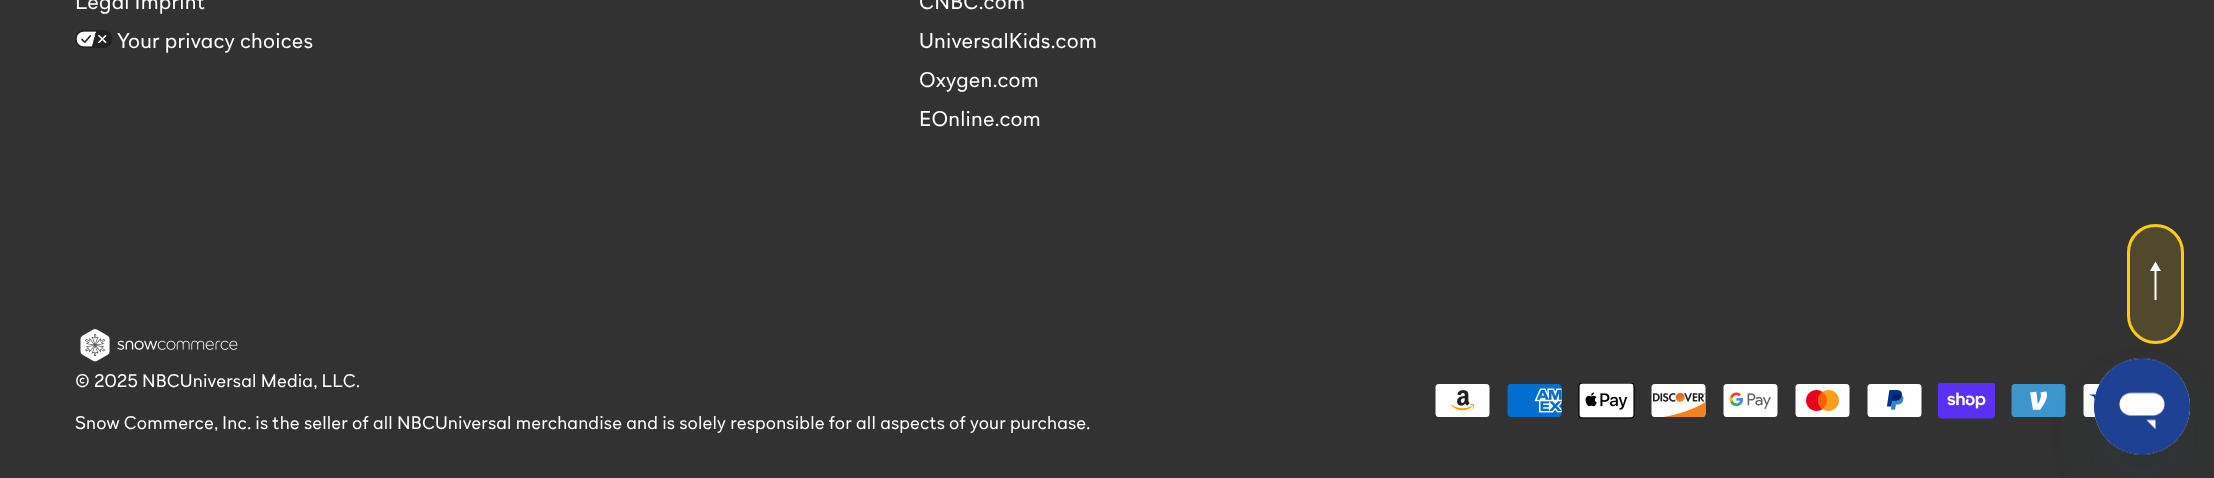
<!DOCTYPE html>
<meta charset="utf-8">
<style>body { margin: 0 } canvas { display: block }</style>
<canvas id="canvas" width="2214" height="478"></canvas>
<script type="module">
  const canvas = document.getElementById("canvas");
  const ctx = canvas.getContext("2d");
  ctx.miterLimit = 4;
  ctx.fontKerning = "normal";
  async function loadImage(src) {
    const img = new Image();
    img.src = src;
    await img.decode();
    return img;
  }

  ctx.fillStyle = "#323232";
  ctx.fillRect(0, 0, 2214, 478);
  ctx.letterSpacing = "0.25px";
  ctx.font = "300 21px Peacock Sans";
  ctx.fillStyle = "#ffffff";
  ctx.fillText("Legal Imprint", 75, 9);
  ctx.drawImage(await loadImage("img1.png"), 75, 30, 38, 18);
  ctx.fillText("Your privacy choices", 117, 48);
  ctx.fillText("CNBC.com", 919, 9);
  ctx.fillText("UniversalKids.com", 919, 48);
  ctx.fillText("Oxygen.com", 919, 87);
  ctx.fillText("EOnline.com", 919, 126);
  ctx.drawImage(await loadImage("img2.png"), 80, 329, 158, 33);
  ctx.letterSpacing = "0.18px";
  ctx.font = "300 18px Peacock Sans";
  ctx.fillText("© 2025 NBCUniversal Media, LLC.", 75, 387);
  ctx.fillText("Snow Commerce, Inc. is the seller of all NBCUniversal merchandise and is solely responsible for all aspects of your purchase.", 75, 429);
  ctx.drawImage(await loadImage("img3.png"), 1435, 384, 55, 33);
  ctx.drawImage(await loadImage("img4.png"), 1507, 384, 55, 33);
  ctx.drawImage(await loadImage("img5.png"), 1578, 383, 57, 36);
  ctx.drawImage(await loadImage("img6.png"), 1651, 384, 55, 33);
  ctx.drawImage(await loadImage("img7.png"), 1723, 384, 55, 33);
  ctx.drawImage(await loadImage("img8.png"), 1795, 384, 55, 33);
  ctx.drawImage(await loadImage("img9.png"), 1867, 384, 55, 33);
  ctx.drawImage(await loadImage("img10.png"), 1938, 383, 57, 36);
  ctx.drawImage(await loadImage("img11.png"), 2011, 384, 55, 33);
  ctx.drawImage(await loadImage("img12.png"), 2083, 384, 17, 33);
  ctx.fillStyle = "#50492d";
  ctx.beginPath();
  ctx.roundRect(2128.5, 225.5, 54, 117, 27);
  ctx.fill();
  ctx.strokeStyle = "#fccc12";
  ctx.lineWidth = 3;
  ctx.stroke();
  ctx.fillStyle = "#ffffff";
  ctx.beginPath();
  ctx.moveTo(2161, 271);
  ctx.lineTo(2155.5, 261.5);
  ctx.lineTo(2150, 271);
  ctx.lineTo(2154.5, 271);
  ctx.lineTo(2154.5, 300);
  ctx.lineTo(2156.5, 300);
  ctx.lineTo(2156.5, 271);
  ctx.closePath();
  ctx.fill();
  ctx.fillStyle = "rgba(23, 73, 77, 0.15)";
  ctx.filter = "blur(22.5px)";
  ctx.beginPath();
  ctx.roundRect(2094, 389, 96, 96, 48);
  ctx.fill();
  ctx.filter = "none";
  ctx.drawImage(await loadImage("img13.png"), 2094, 358, 96, 97);
</script>
